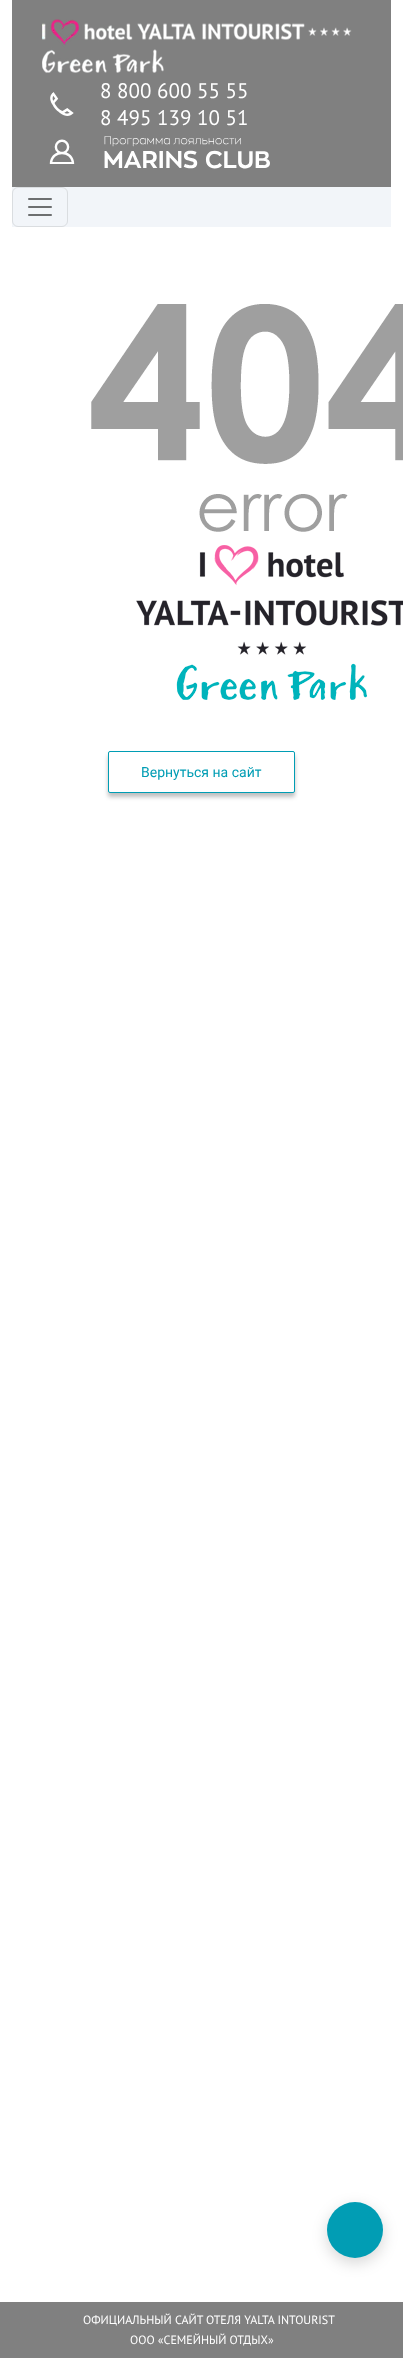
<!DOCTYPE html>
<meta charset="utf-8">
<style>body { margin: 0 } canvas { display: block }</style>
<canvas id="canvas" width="403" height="2358"></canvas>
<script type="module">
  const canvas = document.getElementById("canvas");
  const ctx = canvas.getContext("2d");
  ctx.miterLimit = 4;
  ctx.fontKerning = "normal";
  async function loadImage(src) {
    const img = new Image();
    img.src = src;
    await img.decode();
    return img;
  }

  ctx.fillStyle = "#ffffff";
  ctx.fillRect(0, 0, 403, 2358);
  ctx.fillStyle = "#808080";
  ctx.fillRect(12, 0, 379, 187);
  ctx.drawImage(await loadImage("img1.png"), 42, 19, 310, 54);
  ctx.drawImage(await loadImage("img2.png"), 50, 92, 24, 24);
  ctx.font = "21px PT Sans";
  ctx.fillStyle = "#ffffff";
  ctx.fillText("8 800 600 55 55", 100, 98);
  ctx.fillText("8 495 139 10 51", 100, 125);
  ctx.drawImage(await loadImage("img3.png"), 49, 139, 26, 25);
  ctx.drawImage(await loadImage("img4.png"), 104, 136, 166, 33);
  ctx.fillStyle = "#f2f5f9";
  ctx.fillRect(12, 187, 379, 40);
  ctx.beginPath();
  ctx.roundRect(12.5, 187.5, 55, 39, 5.5);
  ctx.strokeStyle = "#dadde0";
  ctx.stroke();
  ctx.drawImage(await loadImage("img5.png"), 28, 198, 24, 18);
  ctx.drawImage(await loadImage("img6.png"), 91, 304, 312, 396);
  ctx.fillStyle = "rgba(0, 0, 0, 0.25)";
  ctx.filter = "blur(2px)";
  ctx.beginPath();
  ctx.roundRect(108, 755, 187, 42, 2);
  ctx.fill();
  ctx.filter = "none";
  ctx.fillStyle = "#ffffff";
  ctx.beginPath();
  ctx.roundRect(108.5, 751.5, 186, 41, 1.5);
  ctx.fill();
  ctx.strokeStyle = "#009db4";
  ctx.stroke();
  ctx.font = "14px Roboto";
  ctx.fillStyle = "#009db4";
  ctx.fillText("Вернуться на сайт", 141, 777);
  ctx.fillStyle = "#808080";
  ctx.fillRect(0, 2302, 403, 56);
  ctx.fillStyle = "rgba(0, 0, 0, 0.16)";
  ctx.filter = "blur(7.5px)";
  ctx.beginPath();
  ctx.roundRect(327, 2207, 56, 56, 28);
  ctx.fill();
  ctx.filter = "none";
  ctx.fillStyle = "#019db4";
  ctx.beginPath();
  ctx.arc(355, 2230, 28, 0, Math.PI * 2);
  ctx.fill();
  ctx.font = "12px PT Sans";
  ctx.fillStyle = "#ffffff";
  ctx.fillText("ОФИЦИАЛЬНЫЙ САЙТ ОТЕЛЯ YALTA INTOURIST", 83, 2324);
  ctx.fillText("ООО «СЕМЕЙНЫЙ ОТДЫХ»", 130, 2344);
</script>
